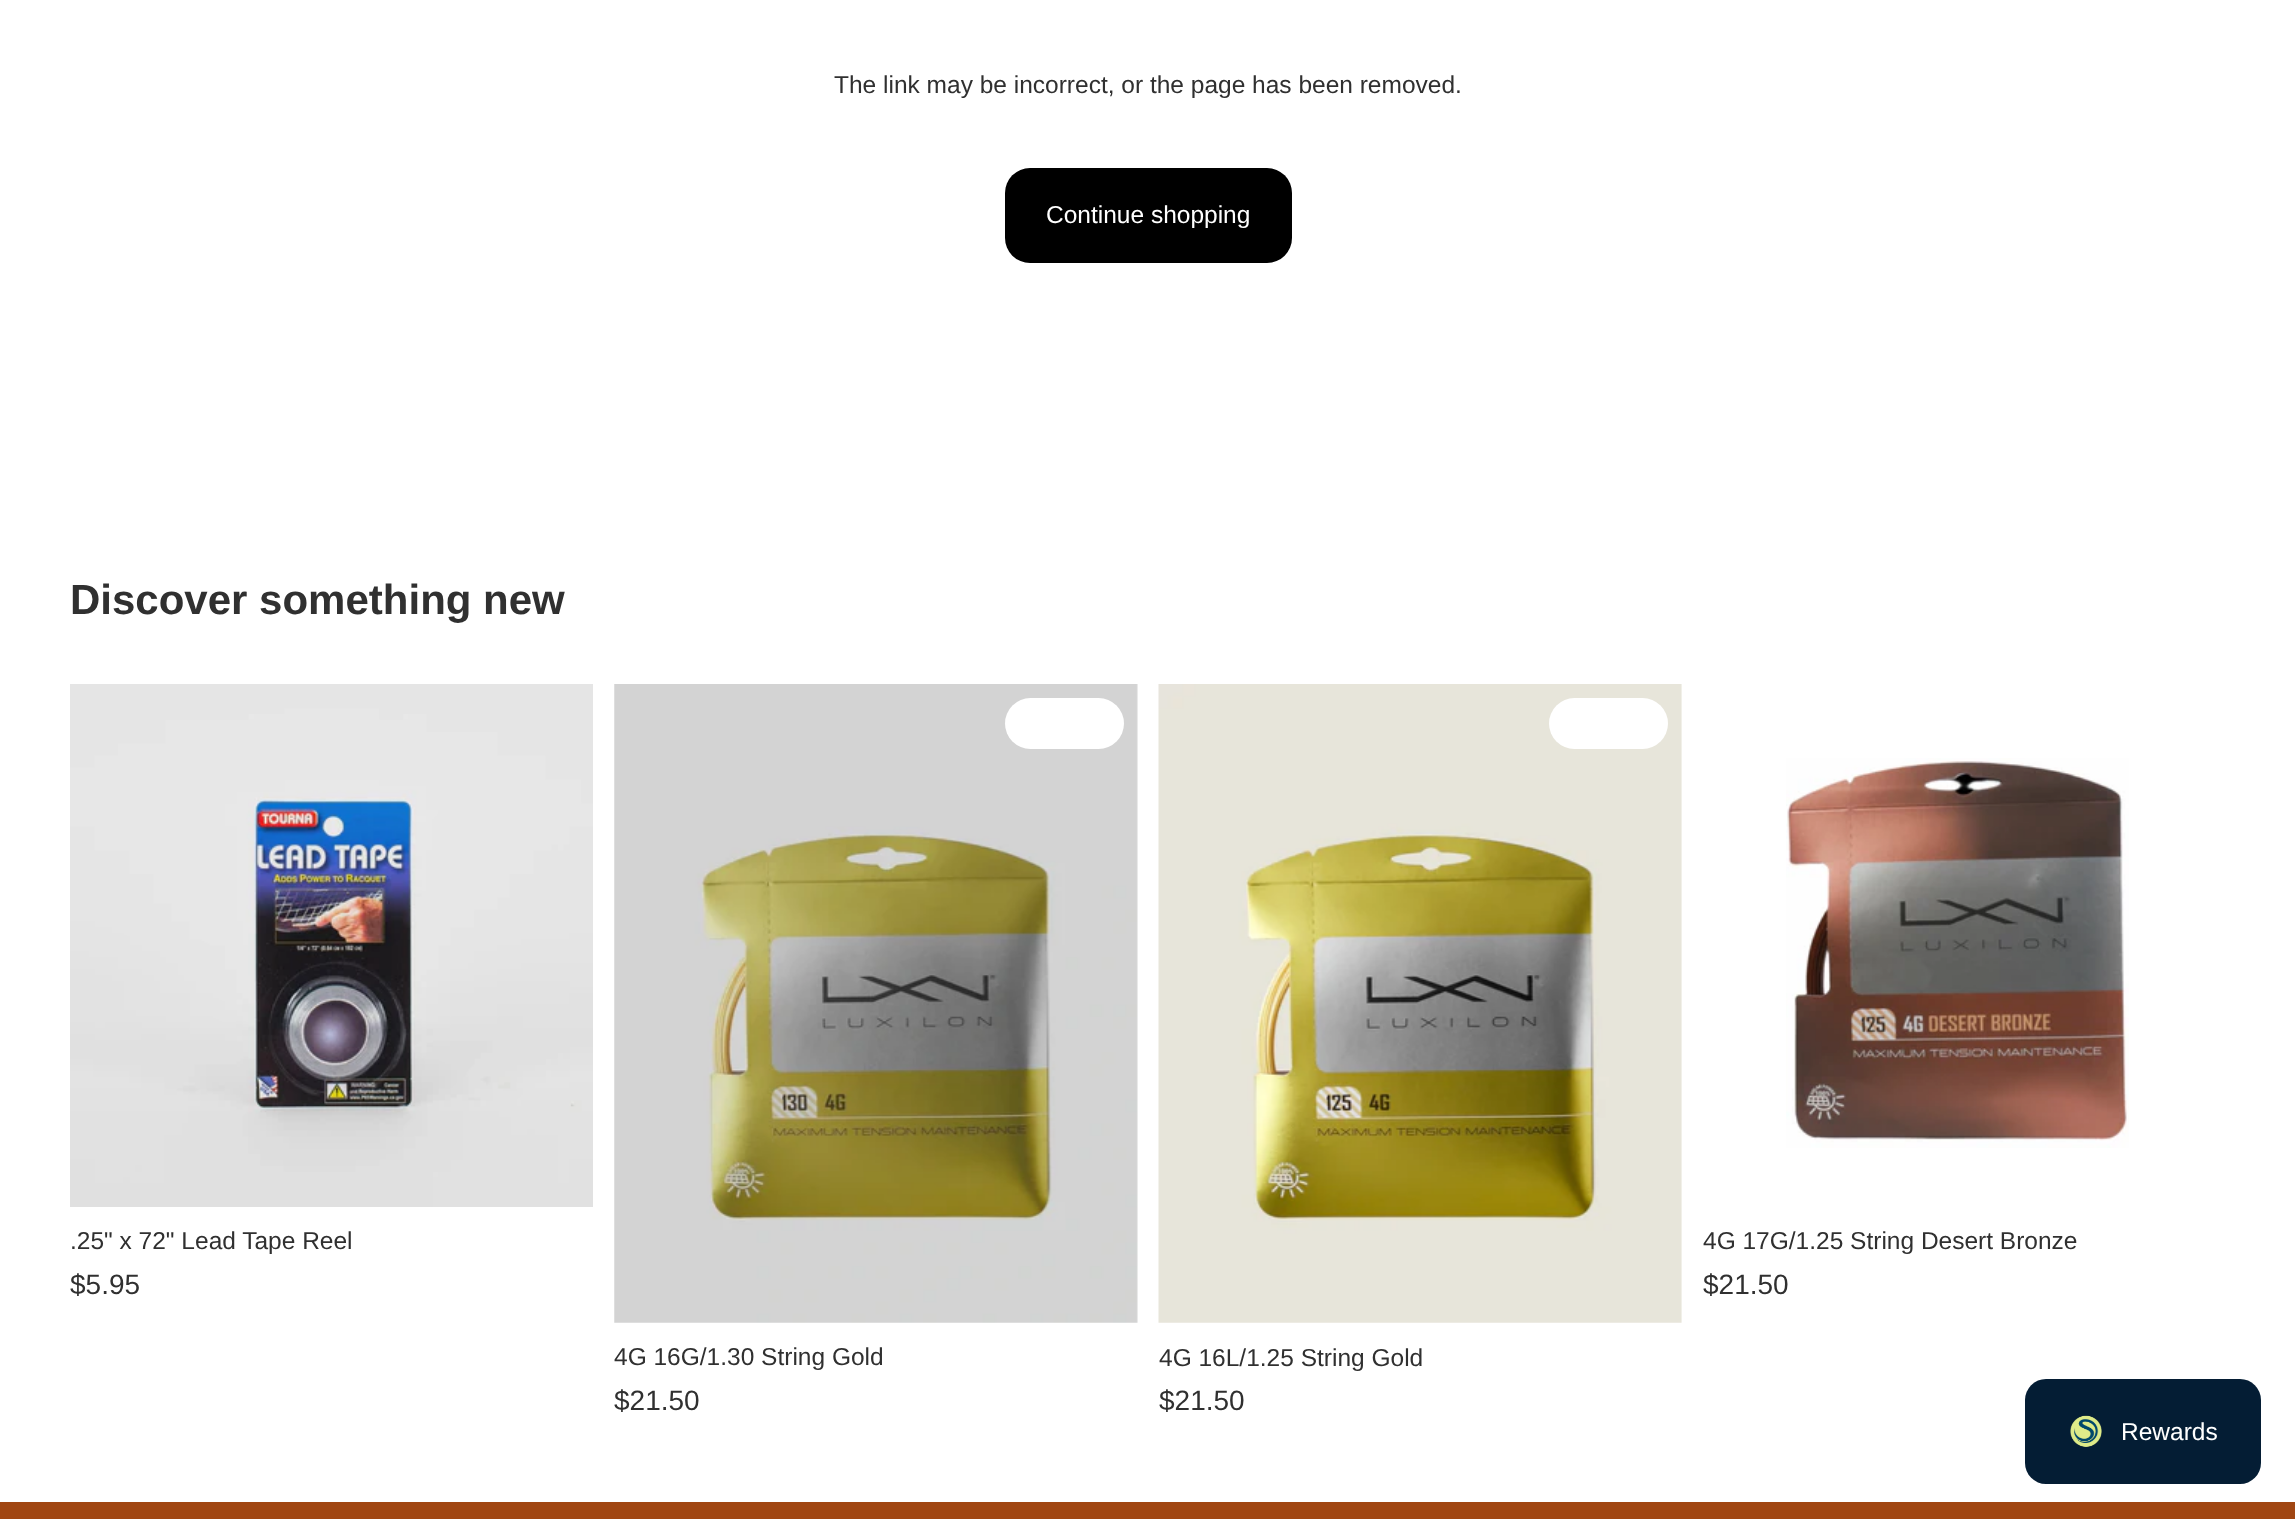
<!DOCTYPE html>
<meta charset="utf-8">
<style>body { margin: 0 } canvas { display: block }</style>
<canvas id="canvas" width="2295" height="1519"></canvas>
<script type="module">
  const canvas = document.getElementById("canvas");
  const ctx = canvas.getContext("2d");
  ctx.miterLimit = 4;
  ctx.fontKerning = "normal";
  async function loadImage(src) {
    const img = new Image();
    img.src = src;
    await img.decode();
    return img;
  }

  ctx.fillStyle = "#ffffff";
  ctx.fillRect(0, 0, 2295, 1519);
  ctx.font = "24.5px Liberation Sans";
  ctx.fillStyle = "#303030";
  ctx.fillText("The link may be incorrect, or the page has been removed.", 834, 93);
  ctx.fillStyle = "#000000";
  ctx.beginPath();
  ctx.roundRect(1005, 168, 287, 95, 25);
  ctx.fill();
  ctx.fillStyle = "#ffffff";
  ctx.fillText("Continue shopping", 1046, 223);
  ctx.font = "bold 42px Liberation Sans";
  ctx.fillStyle = "#303030";
  ctx.fillText("Discover something new", 70, 614);
  ctx.drawImage(await loadImage("img1.png"), 70, 684, 523, 523);
  ctx.font = "24.5px Liberation Sans";
  ctx.fillText(".25\" x 72\" Lead Tape Reel", 70, 1249);
  ctx.font = "28px Liberation Sans";
  ctx.fillText("$5.95", 70, 1294);
  ctx.drawImage(await loadImage("img2.png"), 1786, 758, 343, 390);
  ctx.font = "24.5px Liberation Sans";
  ctx.fillText("4G 17G/1.25 String Desert Bronze", 1703, 1249);
  ctx.font = "28px Liberation Sans";
  ctx.fillText("$21.50", 1703, 1294);
  ctx.drawImage(await loadImage("img3.png"), 614, 684, 524, 639);
  ctx.fillStyle = "#ffffff";
  ctx.beginPath();
  ctx.roundRect(1005, 698, 119, 51, 25.5);
  ctx.fill();
  ctx.font = "24.5px Liberation Sans";
  ctx.fillStyle = "#303030";
  ctx.fillText("4G 16G/1.30 String Gold", 614, 1365);
  ctx.font = "28px Liberation Sans";
  ctx.fillText("$21.50", 614, 1410);
  ctx.drawImage(await loadImage("img4.png"), 1158, 684, 524, 639);
  ctx.fillStyle = "#ffffff";
  ctx.beginPath();
  ctx.roundRect(1549, 698, 119, 51, 25.5);
  ctx.fill();
  ctx.font = "24.5px Liberation Sans";
  ctx.fillStyle = "#303030";
  ctx.fillText("4G 16L/1.25 String Gold", 1159, 1366);
  ctx.font = "28px Liberation Sans";
  ctx.fillText("$21.50", 1159, 1410);
  ctx.fillStyle = "#041d34";
  ctx.beginPath();
  ctx.roundRect(2025, 1379, 236, 105, 21);
  ctx.fill();
  ctx.drawImage(await loadImage("img5.png"), 2070, 1415, 32, 32);
  ctx.font = "24.5px Liberation Sans";
  ctx.fillStyle = "#ffffff";
  ctx.fillText("Rewards", 2121, 1440);
  ctx.fillStyle = "#a14612";
  ctx.fillRect(0, 1502, 2295, 17);
</script>
